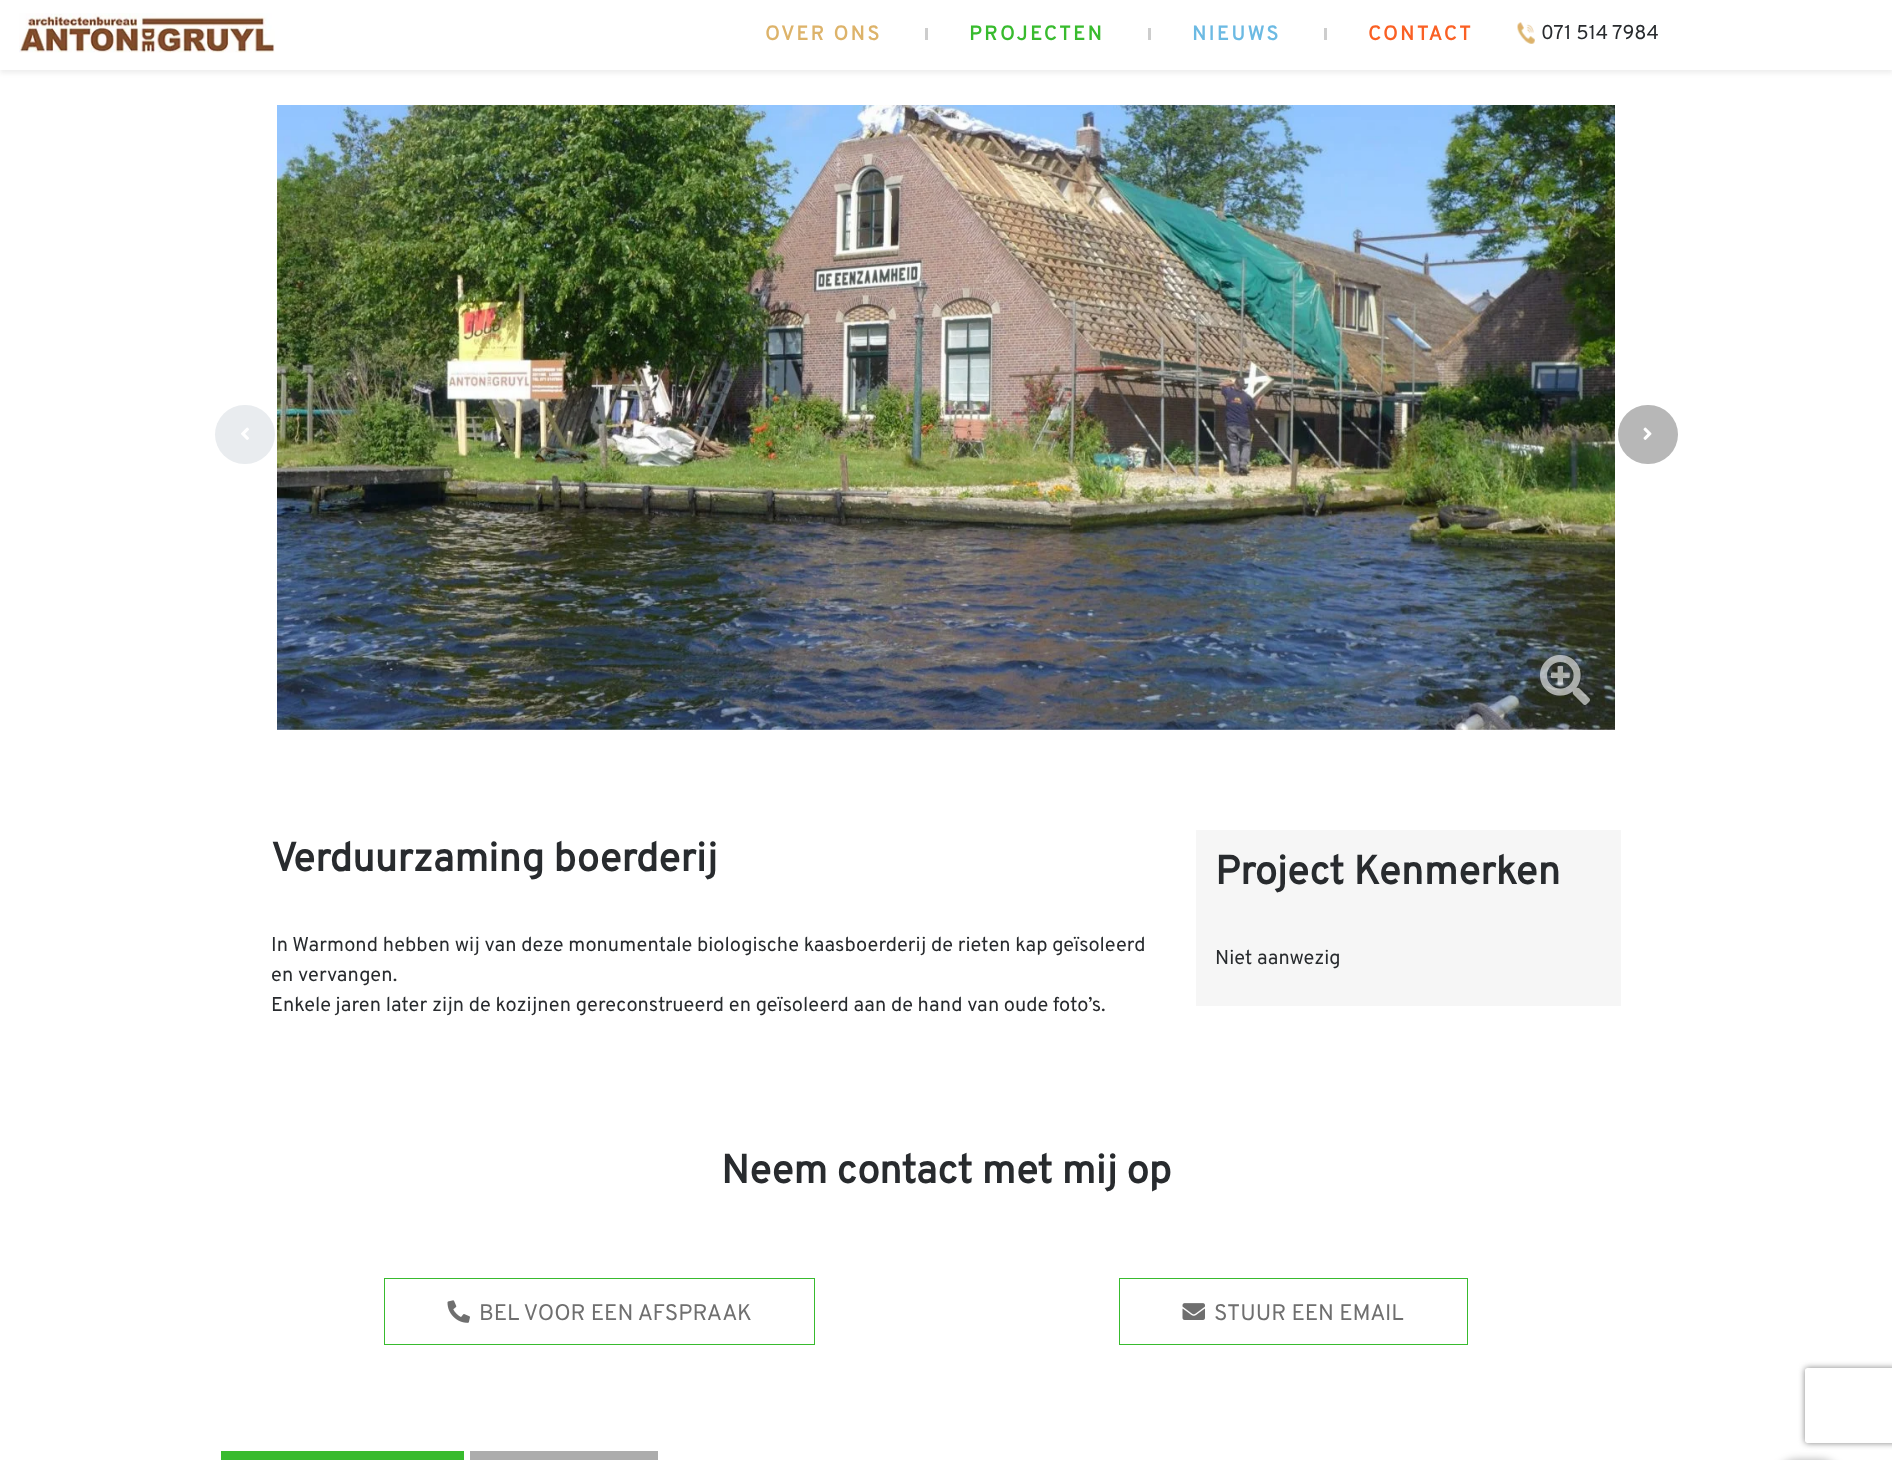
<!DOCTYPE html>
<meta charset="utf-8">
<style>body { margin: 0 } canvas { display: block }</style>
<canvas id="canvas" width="1892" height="1460"></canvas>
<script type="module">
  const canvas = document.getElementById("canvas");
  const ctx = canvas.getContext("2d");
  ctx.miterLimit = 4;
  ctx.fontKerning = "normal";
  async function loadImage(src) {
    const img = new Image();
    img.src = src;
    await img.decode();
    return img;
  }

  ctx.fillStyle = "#ffffff";
  ctx.fillRect(0, 0, 1892, 1460);
  ctx.fillStyle = "rgba(0, 0, 0, 0.07)";
  ctx.filter = "blur(2.5px)";
  ctx.beginPath();
  ctx.rect(0, 3, 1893, 70);
  ctx.fill();
  ctx.filter = "none";
  ctx.fillStyle = "#ffffff";
  ctx.fillRect(0, 0, 1892, 70);
  ctx.drawImage(await loadImage("img1.png"), 19, 13, 256, 40);
  ctx.letterSpacing = "2.5px";
  ctx.font = "bold 20px Overpass";
  ctx.fillStyle = "#ddb36a";
  ctx.fillText("OVER ONS", 765, 40);
  ctx.fillStyle = "#cdcdcd";
  ctx.fillRect(925, 28, 3, 12);
  ctx.fillStyle = "#38bb2e";
  ctx.fillText("PROJECTEN", 969, 40);
  ctx.fillStyle = "#cdcdcd";
  ctx.fillRect(1148, 28, 3, 12);
  ctx.fillStyle = "#6cbae3";
  ctx.fillText("NIEUWS", 1192, 40);
  ctx.fillStyle = "#cdcdcd";
  ctx.fillRect(1324, 28, 3, 12);
  ctx.fillStyle = "#fa6024";
  ctx.fillText("CONTACT", 1368, 40);
  ctx.drawImage(await loadImage("img2.png"), 1517, 22, 18, 22);
  ctx.letterSpacing = "0px";
  ctx.font = "20px Overpass";
  ctx.fillStyle = "#282b2e";
  ctx.fillText("071 514 7984", 1541, 39);
  ctx.drawImage(await loadImage("img3.png"), 277, 105, 1338, 625);
  ctx.drawImage(await loadImage("img4.png"), 1540, 655, 50, 50);
  ctx.fillStyle = "#e9ecef";
  ctx.beginPath();
  ctx.roundRect(215, 405, 60, 59, 29.5);
  ctx.fill();
  ctx.drawImage(await loadImage("img5.png"), 241, 427, 8, 13);
  ctx.fillStyle = "#b7b7b7";
  ctx.beginPath();
  ctx.roundRect(1618, 405, 60, 59, 29.5);
  ctx.fill();
  ctx.drawImage(await loadImage("img6.png"), 1643, 427, 9, 13);
  ctx.font = "bold 40px Overpass";
  ctx.fillStyle = "#282b2e";
  ctx.fillText("Verduurzaming boerderij", 271, 871);
  ctx.font = "20px Overpass";
  ctx.fillText("In Warmond hebben wij van deze monumentale biologische kaasboerderij de rieten kap geïsoleerd", 271, 951);
  ctx.fillText("en vervangen.", 271, 981);
  ctx.fillText("Enkele jaren later zijn de kozijnen gereconstrueerd en geïsoleerd aan de hand van oude foto’s.", 271, 1011);
  ctx.fillStyle = "#f6f6f6";
  ctx.fillRect(1196, 830, 425, 176);
  ctx.font = "bold 40px Overpass";
  ctx.fillStyle = "#282b2e";
  ctx.fillText("Project Kenmerken", 1215, 884);
  ctx.font = "20px Overpass";
  ctx.fillText("Niet aanwezig", 1215, 964);
  ctx.font = "bold 40px Overpass";
  ctx.fillText("Neem contact met mij op", 721, 1183);
  ctx.strokeStyle = "#38bb2e";
  ctx.strokeRect(384.5, 1278.5, 430, 66);
  ctx.drawImage(await loadImage("img7.png"), 447, 1300, 23, 23);
  ctx.font = "22.5px Overpass";
  ctx.fillStyle = "#6f6f6f";
  ctx.fillText("BEL VOOR EEN AFSPRAAK", 479, 1320);
  ctx.strokeRect(1119.5, 1278.5, 348, 66);
  ctx.drawImage(await loadImage("img8.png"), 1182, 1303, 23, 17);
  ctx.fillText("STUUR EEN EMAIL", 1214, 1320);
  ctx.save();
  ctx.beginPath();
  ctx.moveTo(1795, 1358);
  ctx.lineTo(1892, 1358);
  ctx.lineTo(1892, 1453);
  ctx.lineTo(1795, 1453);
  ctx.closePath();
  ctx.moveTo(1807.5, 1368);
  ctx.lineTo(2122.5, 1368);
  ctx.bezierCurveTo(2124, 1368, 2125, 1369, 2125, 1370.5);
  ctx.lineTo(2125, 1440.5);
  ctx.bezierCurveTo(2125, 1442, 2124, 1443, 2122.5, 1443);
  ctx.lineTo(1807.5, 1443);
  ctx.bezierCurveTo(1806, 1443, 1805, 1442, 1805, 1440.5);
  ctx.lineTo(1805, 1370.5);
  ctx.bezierCurveTo(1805, 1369, 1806, 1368, 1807.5, 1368);
  ctx.closePath();
  ctx.clip("evenodd");
  ctx.fillStyle = "#808080";
  ctx.filter = "blur(3px)";
  ctx.beginPath();
  ctx.roundRect(1805, 1368, 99, 75, 2.5);
  ctx.fill();
  ctx.filter = "none";
  ctx.restore();
  ctx.fillStyle = "#38bb2e";
  ctx.fillRect(221, 1451, 243, 9);
  ctx.fillStyle = "#acacac";
  ctx.fillRect(470, 1451, 188, 9);
  ctx.fillStyle = "rgba(0, 0, 0, 0.3)";
  ctx.filter = "blur(4px)";
  ctx.beginPath();
  ctx.roundRect(1774, 1460, 69, 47, 34.5);
  ctx.fill();
  ctx.filter = "none";
</script>
